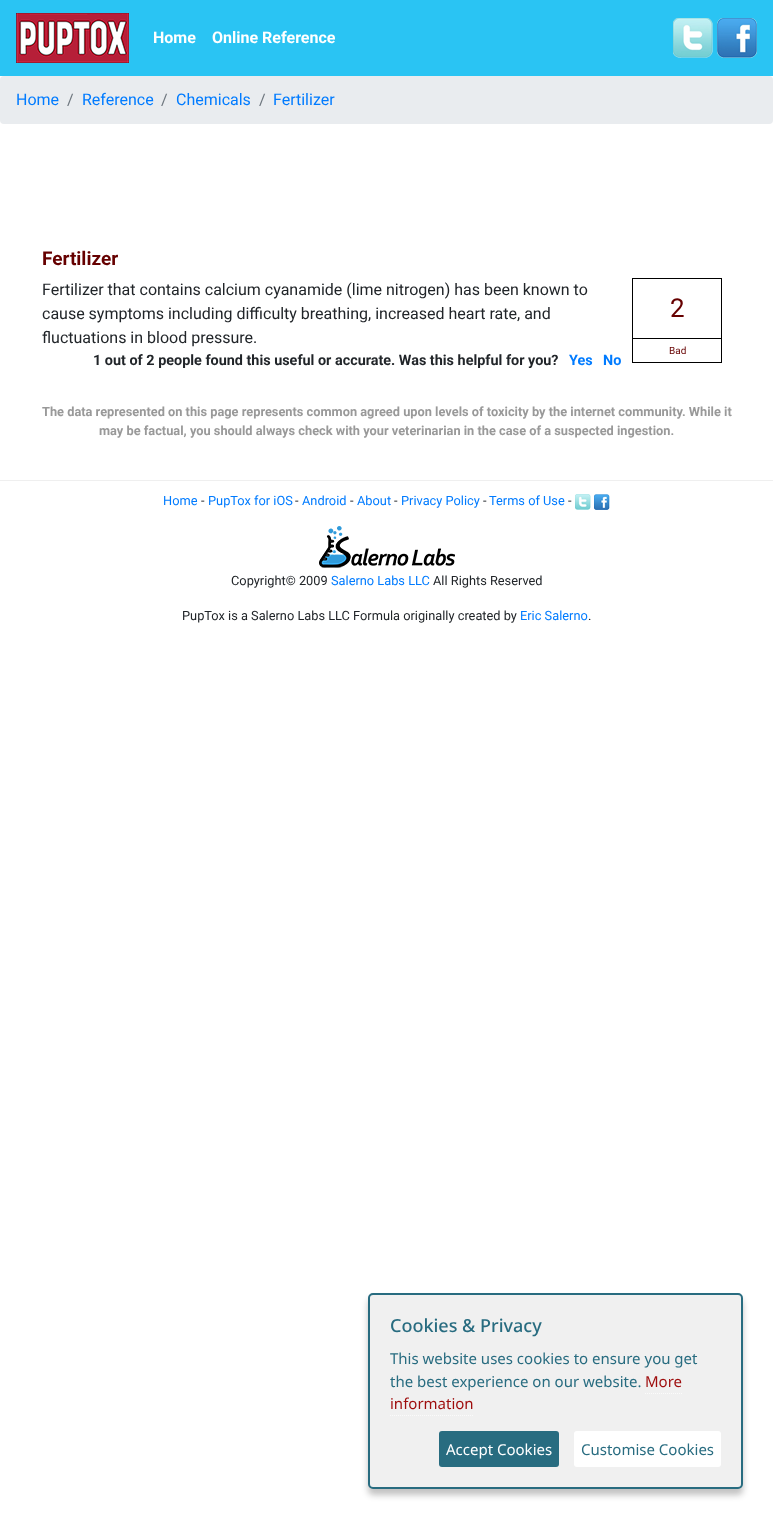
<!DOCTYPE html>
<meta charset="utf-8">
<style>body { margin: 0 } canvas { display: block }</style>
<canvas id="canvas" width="773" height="1519"></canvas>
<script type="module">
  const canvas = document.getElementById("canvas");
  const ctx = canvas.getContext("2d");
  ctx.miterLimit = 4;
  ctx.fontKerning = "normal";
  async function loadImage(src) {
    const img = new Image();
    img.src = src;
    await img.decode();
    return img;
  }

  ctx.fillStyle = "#ffffff";
  ctx.fillRect(0, 0, 773, 1519);
  ctx.fillStyle = "#2ac4f3";
  ctx.fillRect(0, 0, 773, 76);
  ctx.drawImage(await loadImage("img1.png"), 16, 13, 113, 50);
  ctx.font = "bold 16px Roboto";
  ctx.fillStyle = "#ffffff";
  ctx.fillText("Home", 153, 43);
  ctx.fillText("Online Reference", 212, 43);
  ctx.drawImage(await loadImage("img2.png"), 673, 18, 40, 40);
  ctx.drawImage(await loadImage("img3.png"), 717, 18, 40, 40);
  ctx.fillStyle = "#e9ecef";
  ctx.beginPath();
  ctx.roundRect(0, 76, 773, 48, 4);
  ctx.fill();
  ctx.font = "16px Roboto";
  ctx.fillStyle = "#007bff";
  ctx.fillText("Home", 16, 105);
  ctx.fillStyle = "#6c757d";
  ctx.fillText("/", 67, 105);
  ctx.fillStyle = "#007bff";
  ctx.fillText("Reference", 82, 105);
  ctx.fillStyle = "#6c757d";
  ctx.fillText("/", 161, 105);
  ctx.fillStyle = "#007bff";
  ctx.fillText("Chemicals", 176, 105);
  ctx.fillStyle = "#6c757d";
  ctx.fillText("/", 259, 105);
  ctx.fillStyle = "#007bff";
  ctx.fillText("Fertilizer", 273, 105);
  ctx.font = "bold 19px Roboto";
  ctx.fillStyle = "#660000";
  ctx.fillText("Fertilizer", 42, 265);
  ctx.font = "16px Roboto";
  ctx.fillStyle = "#212529";
  ctx.fillText("Fertilizer that contains calcium cyanamide (lime nitrogen) has been known to", 42, 295);
  ctx.fillText("cause symptoms including difficulty breathing, increased heart rate, and", 42, 319);
  ctx.strokeStyle = "#000000";
  ctx.strokeRect(632.5, 278.5, 89, 84);
  ctx.font = "26px Roboto";
  ctx.fillStyle = "#660000";
  ctx.fillText("2", 670, 317);
  ctx.fillStyle = "#000000";
  ctx.fillRect(633, 338, 88, 1);
  ctx.font = "10px Roboto";
  ctx.fillStyle = "#660000";
  ctx.fillText("Bad", 669, 354);
  ctx.font = "16px Roboto";
  ctx.fillStyle = "#212529";
  ctx.fillText("fluctuations in blood pressure.", 42, 343);
  ctx.font = "bold 14.4px Roboto";
  ctx.fillText("1 out of 2 people found this useful or accurate. Was this helpful for you?", 93, 365);
  ctx.fillStyle = "#007bff";
  ctx.fillText("Yes", 569, 365);
  ctx.fillText("No", 603, 365);
  ctx.font = "bold 12.8px Roboto";
  ctx.fillStyle = "#999999";
  ctx.fillText("The data represented on this page represents common agreed upon levels of toxicity by the internet community. While it", 42, 416);
  ctx.fillText("may be factual, you should always check with your veterinarian in the case of a suspected ingestion.", 99, 435);
  ctx.fillStyle = "#efefef";
  ctx.fillRect(0, 480, 773, 1);
  ctx.font = "12.8px Roboto";
  ctx.fillStyle = "#007bff";
  ctx.fillText("Home", 163, 505);
  ctx.fillStyle = "#212529";
  ctx.fillText("-", 201, 505);
  ctx.fillStyle = "#007bff";
  ctx.fillText("PupTox for iOS", 208, 505);
  ctx.fillStyle = "#212529";
  ctx.fillText("-", 295, 505);
  ctx.fillStyle = "#007bff";
  ctx.fillText("Android", 302, 505);
  ctx.fillStyle = "#212529";
  ctx.fillText("-", 350, 505);
  ctx.fillStyle = "#007bff";
  ctx.fillText("About", 357, 505);
  ctx.fillStyle = "#212529";
  ctx.fillText("-", 394, 505);
  ctx.fillStyle = "#007bff";
  ctx.fillText("Privacy Policy", 401, 505);
  ctx.fillStyle = "#212529";
  ctx.fillText("-", 483, 505);
  ctx.fillStyle = "#007bff";
  ctx.fillText("Terms of Use", 489, 505);
  ctx.fillStyle = "#212529";
  ctx.fillText("-", 568, 505);
  ctx.drawImage(await loadImage("img4.png"), 575, 494, 16, 16);
  ctx.drawImage(await loadImage("img5.png"), 594, 494, 16, 16);
  ctx.drawImage(await loadImage("img6.png"), 319, 526, 136, 42);
  ctx.fillText("Copyright© 2009", 231, 585);
  ctx.fillStyle = "#007bff";
  ctx.fillText("Salerno Labs LLC", 331, 585);
  ctx.fillStyle = "#212529";
  ctx.fillText("All Rights Reserved", 433, 585);
  ctx.fillText("PupTox is a Salerno Labs LLC Formula originally created by", 182, 620);
  ctx.fillStyle = "#007bff";
  ctx.fillText("Eric Salerno", 520, 620);
  ctx.fillStyle = "#212529";
  ctx.fillText(".", 588, 620);
  ctx.fillStyle = "rgba(12, 12, 12, 0.25)";
  ctx.filter = "blur(3px)";
  ctx.beginPath();
  ctx.roundRect(368, 1299, 375, 196, 5);
  ctx.fill();
  ctx.filter = "none";
  ctx.fillStyle = "#f0f0f0";
  ctx.beginPath();
  ctx.roundRect(369, 1294, 373, 194, 4);
  ctx.fill();
  ctx.strokeStyle = "#286c80";
  ctx.lineWidth = 2;
  ctx.stroke();
  ctx.font = "500 18px Noto Sans";
  ctx.fillStyle = "#286c80";
  ctx.fillText("Cookies & Privacy", 390, 1332);
  ctx.font = "15px Noto Sans";
  ctx.fillText("This website uses cookies to ensure you get", 390, 1364);
  ctx.fillText("the best experience on our website.", 390, 1387);
  ctx.fillStyle = "#9e0c0c";
  ctx.fillText("More", 645, 1387);
  ctx.beginPath();
  ctx.moveTo(645, 1393.5);
  ctx.lineTo(682, 1393.5);
  ctx.strokeStyle = "#fbfbfb";
  ctx.lineWidth = 1;
  ctx.setLineDash([1, 1]);
  ctx.stroke();
  ctx.fillText("information", 390, 1409);
  ctx.beginPath();
  ctx.moveTo(390, 1415.5);
  ctx.lineTo(474, 1415.5);
  ctx.stroke();
  ctx.fillStyle = "#286c80";
  ctx.beginPath();
  ctx.roundRect(439, 1431, 120, 36, 3);
  ctx.fill();
  ctx.fillStyle = "#ffffff";
  ctx.fillText("Accept Cookies", 446, 1455);
  ctx.beginPath();
  ctx.roundRect(574, 1431, 147, 36, 3);
  ctx.fill();
  ctx.fillStyle = "#286c80";
  ctx.fillText("Customise Cookies", 581, 1455);
</script>
